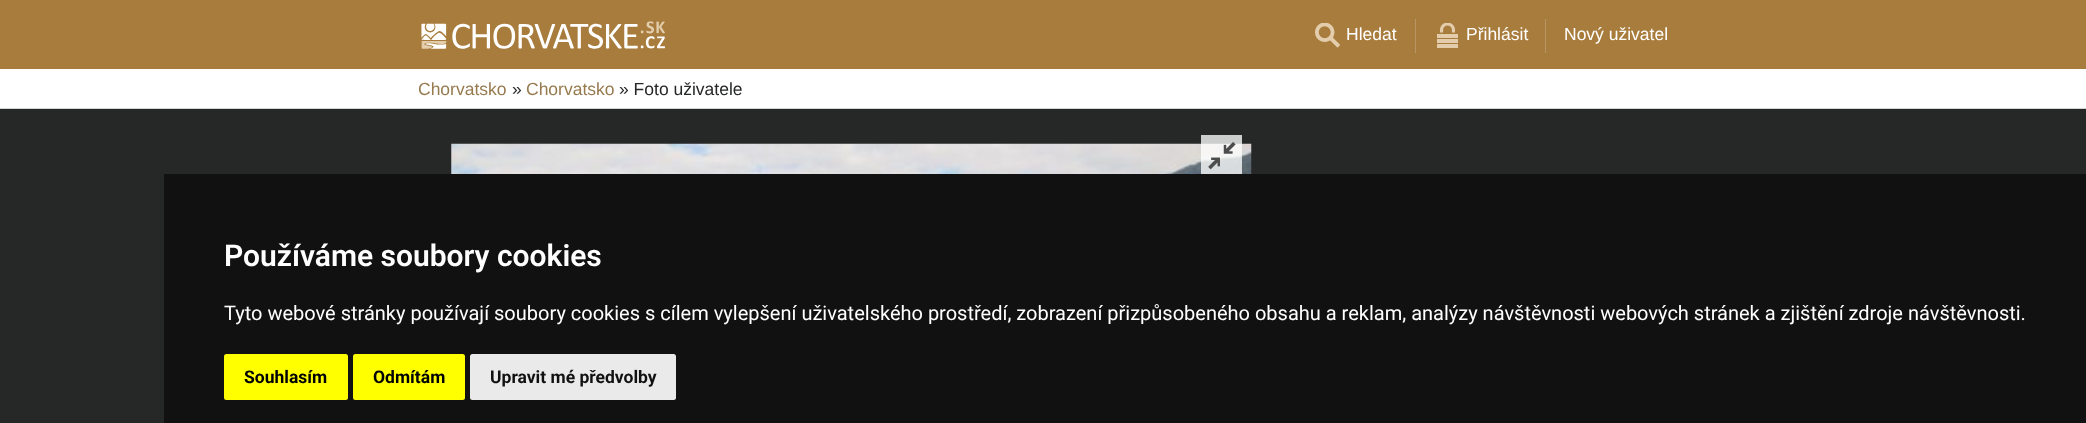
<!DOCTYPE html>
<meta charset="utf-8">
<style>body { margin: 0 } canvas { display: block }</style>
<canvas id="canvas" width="2086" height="423"></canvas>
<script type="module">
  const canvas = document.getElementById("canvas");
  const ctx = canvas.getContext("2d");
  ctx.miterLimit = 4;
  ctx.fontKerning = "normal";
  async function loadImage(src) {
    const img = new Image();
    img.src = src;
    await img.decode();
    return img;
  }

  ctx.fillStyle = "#262727";
  ctx.fillRect(0, 0, 2086, 423);
  ctx.fillStyle = "#a87c3c";
  ctx.fillRect(0, 0, 2086, 69);
  ctx.drawImage(await loadImage("img1.png"), 421, 21, 244, 28);
  ctx.drawImage(await loadImage("img2.png"), 1315, 23, 25, 25);
  ctx.font = "17.5px Liberation Sans";
  ctx.fillStyle = "#ffffff";
  ctx.fillText("Hledat", 1346, 40);
  ctx.fillStyle = "#b89562";
  ctx.fillRect(1415, 19, 1, 34);
  ctx.drawImage(await loadImage("img3.png"), 1437, 23, 21, 25);
  ctx.fillStyle = "#ffffff";
  ctx.fillText("Přihlásit", 1466, 40);
  ctx.fillStyle = "#b89562";
  ctx.fillRect(1545, 19, 1, 34);
  ctx.fillStyle = "#ffffff";
  ctx.fillText("Nový uživatel", 1564, 40);
  ctx.fillRect(0, 69, 2086, 39);
  ctx.fillStyle = "#d4d4d4";
  ctx.fillRect(0, 108, 2086, 1);
  ctx.fillStyle = "#977a4e";
  ctx.fillText("Chorvatsko", 418, 95);
  ctx.fillStyle = "#262727";
  ctx.fillText("»", 512, 95);
  ctx.fillStyle = "#977a4e";
  ctx.fillText("Chorvatsko", 526, 95);
  ctx.fillStyle = "#262727";
  ctx.fillText("» Foto uživatele", 619, 95);
  ctx.drawImage(await loadImage("img5.png"), 451, 143, 801, 31);
  ctx.drawImage(await loadImage("img4.png"), 1201, 135, 41, 39);
  ctx.fillStyle = "#111111";
  ctx.fillRect(164, 174, 1922, 249);
  ctx.font = "600 30px Roboto";
  ctx.fillStyle = "#ffffff";
  ctx.fillText("Používáme soubory cookies", 224, 266);
  ctx.font = "20px Roboto";
  ctx.fillText("Tyto webové stránky používají soubory cookies s cílem vylepšení uživatelského prostředí, zobrazení přizpůsobeného obsahu a reklam, analýzy návštěvnosti webových stránek a zjištění zdroje návštěvnosti.", 224, 320);
  ctx.fillStyle = "#ffff00";
  ctx.beginPath();
  ctx.roundRect(224, 354, 124, 46, 2.5);
  ctx.fill();
  ctx.font = "bold 17.5px Roboto";
  ctx.fillStyle = "#000000";
  ctx.fillText("Souhlasím", 244, 383);
  ctx.fillStyle = "#ffff00";
  ctx.beginPath();
  ctx.roundRect(353, 354, 112, 46, 2.5);
  ctx.fill();
  ctx.fillStyle = "#000000";
  ctx.fillText("Odmítám", 373, 383);
  ctx.fillStyle = "#eaeaea";
  ctx.beginPath();
  ctx.roundRect(470, 354, 206, 46, 2.5);
  ctx.fill();
  ctx.fillStyle = "#111111";
  ctx.fillText("Upravit mé předvolby", 490, 383);
</script>
